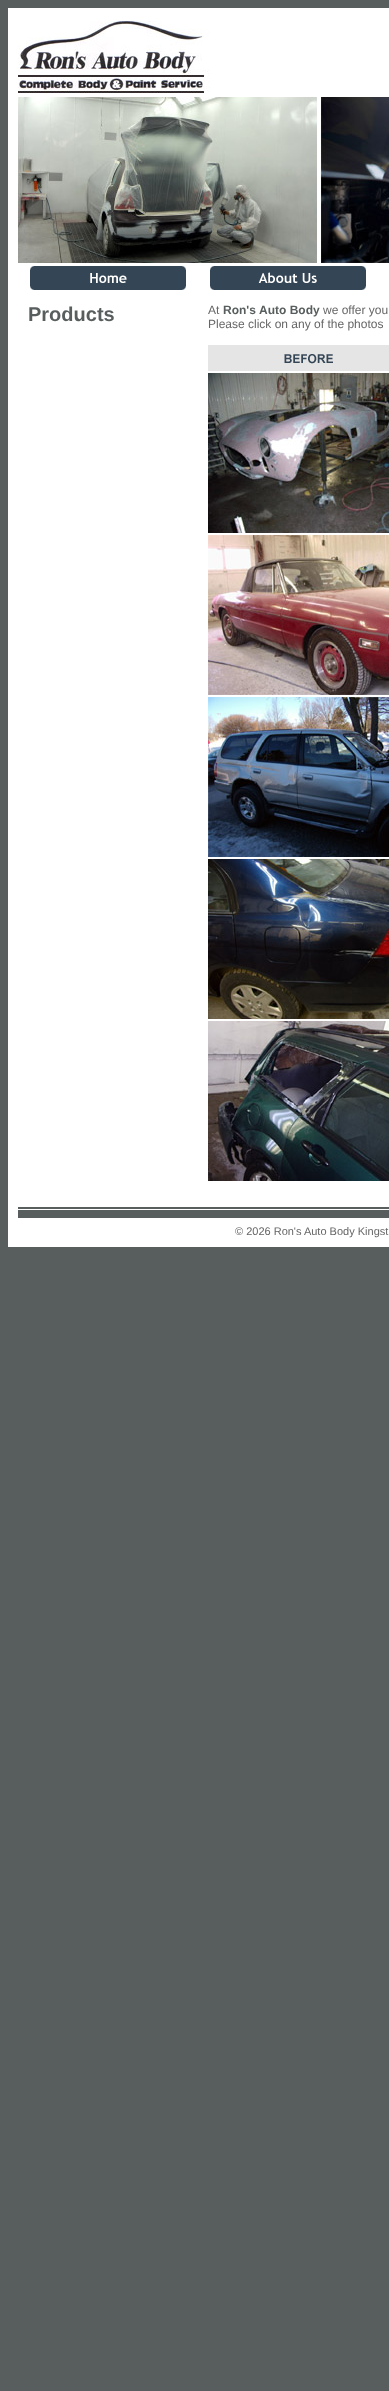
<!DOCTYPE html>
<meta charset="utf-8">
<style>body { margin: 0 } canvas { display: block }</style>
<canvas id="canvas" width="389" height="2391"></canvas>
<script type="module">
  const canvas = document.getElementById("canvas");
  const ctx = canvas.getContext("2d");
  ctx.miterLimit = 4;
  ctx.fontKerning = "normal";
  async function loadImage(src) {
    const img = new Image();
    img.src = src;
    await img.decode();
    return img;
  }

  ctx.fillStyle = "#585e5e";
  ctx.fillRect(0, 0, 389, 2391);
  ctx.fillStyle = "#ffffff";
  ctx.fillRect(8, 8, 381, 1239);
  ctx.drawImage(await loadImage("img1.png"), 18, 21, 192, 72);
  ctx.drawImage(await loadImage("img2.png"), 18, 97, 299, 166);
  ctx.drawImage(await loadImage("img3.png"), 320, 97, 69, 166);
  ctx.drawImage(await loadImage("img4.png"), 30, 266, 156, 24);
  ctx.drawImage(await loadImage("img5.png"), 210, 266, 156, 24);
  ctx.font = "bold 20px Liberation Sans";
  ctx.fillStyle = "#585e5e";
  ctx.fillText("Products", 28, 321);
  ctx.font = "12px Liberation Sans";
  ctx.fillStyle = "#666666";
  ctx.fillText("At", 208, 314);
  ctx.font = "bold 12px Liberation Sans";
  ctx.fillStyle = "#585e5e";
  ctx.fillText("Ron's", 223, 314);
  ctx.fillText("Auto Body", 259, 314);
  ctx.font = "12px Liberation Sans";
  ctx.fillStyle = "#666666";
  ctx.fillText("we offer you", 323, 314);
  ctx.fillText("Please click on any of the photos", 208, 328);
  ctx.drawImage(await loadImage("img6.png"), 208, 345, 181, 26);
  ctx.drawImage(await loadImage("img7.png"), 208, 373, 181, 160);
  ctx.drawImage(await loadImage("img8.png"), 208, 535, 181, 160);
  ctx.drawImage(await loadImage("img9.png"), 208, 697, 181, 160);
  ctx.drawImage(await loadImage("img10.png"), 208, 859, 181, 160);
  ctx.drawImage(await loadImage("img11.png"), 208, 1021, 181, 160);
  ctx.drawImage(await loadImage("img12.png"), 18, 1207, 371, 11);
  ctx.font = "11px Liberation Sans";
  ctx.fillText("© 2026 Ron's Auto Body Kingst", 235, 1235);
</script>
